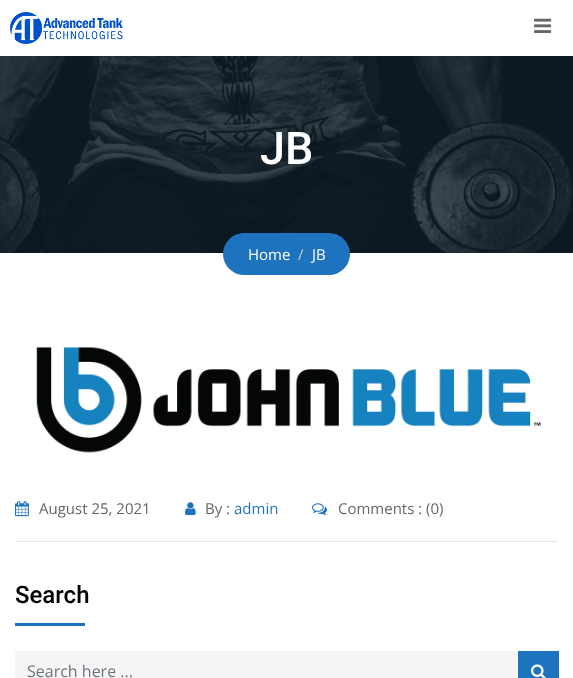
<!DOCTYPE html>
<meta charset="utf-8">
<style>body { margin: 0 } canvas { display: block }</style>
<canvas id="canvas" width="573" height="678"></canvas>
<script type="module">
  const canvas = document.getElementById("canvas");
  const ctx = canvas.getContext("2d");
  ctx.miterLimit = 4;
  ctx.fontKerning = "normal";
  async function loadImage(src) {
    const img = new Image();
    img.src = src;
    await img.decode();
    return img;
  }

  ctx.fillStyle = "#ffffff";
  ctx.fillRect(0, 0, 573, 678);
  ctx.drawImage(await loadImage("img1.png"), 10, 12, 113, 32);
  ctx.drawImage(await loadImage("img2.png"), 534, 18, 18, 15);
  ctx.drawImage(await loadImage("img3.png"), 0, 56, 573, 197);
  ctx.font = "500 45px Roboto";
  ctx.fillText("JB", 260, 164);
  ctx.fillStyle = "#1e73be";
  ctx.beginPath();
  ctx.roundRect(223, 233, 127, 42, 21);
  ctx.fill();
  ctx.font = "15px Open Sans";
  ctx.fillStyle = "#ffffff";
  ctx.fillText("Home", 248, 260);
  ctx.fillStyle = "#cccccc";
  ctx.fillText("/", 298, 260);
  ctx.fillStyle = "#ffffff";
  ctx.fillText("JB", 312, 260);
  ctx.drawImage(await loadImage("img4.png"), 36, 346, 505, 107);
  ctx.fillStyle = "#e7e7e7";
  ctx.fillRect(15, 541, 543, 1);
  ctx.drawImage(await loadImage("img5.png"), 15, 501, 14, 16);
  ctx.fillStyle = "#666666";
  ctx.fillText("August 25, 2021", 39, 514);
  ctx.drawImage(await loadImage("img6.png"), 185, 502, 11, 14);
  ctx.fillText("By :", 205, 514);
  ctx.fillStyle = "#1e73be";
  ctx.fillText("admin", 234, 514);
  ctx.drawImage(await loadImage("img7.png"), 312, 503, 15, 12);
  ctx.fillStyle = "#666666";
  ctx.fillText("Comments : (0)", 338, 514);
  ctx.font = "500 24px Roboto";
  ctx.fillStyle = "#000000";
  ctx.fillText("Search", 15, 603);
  ctx.fillStyle = "#1e73be";
  ctx.fillRect(15, 623, 70, 3);
  ctx.fillStyle = "#f5f5f5";
  ctx.fillRect(15, 651, 503, 27);
  ctx.font = "16px Open Sans";
  ctx.fillStyle = "#6c757d";
  ctx.fillText("Search here ...", 27, 677);
  ctx.fillStyle = "#1e73be";
  ctx.fillRect(518, 651, 41, 27);
  ctx.drawImage(await loadImage("img8.png"), 531, 664, 15, 14);
</script>
